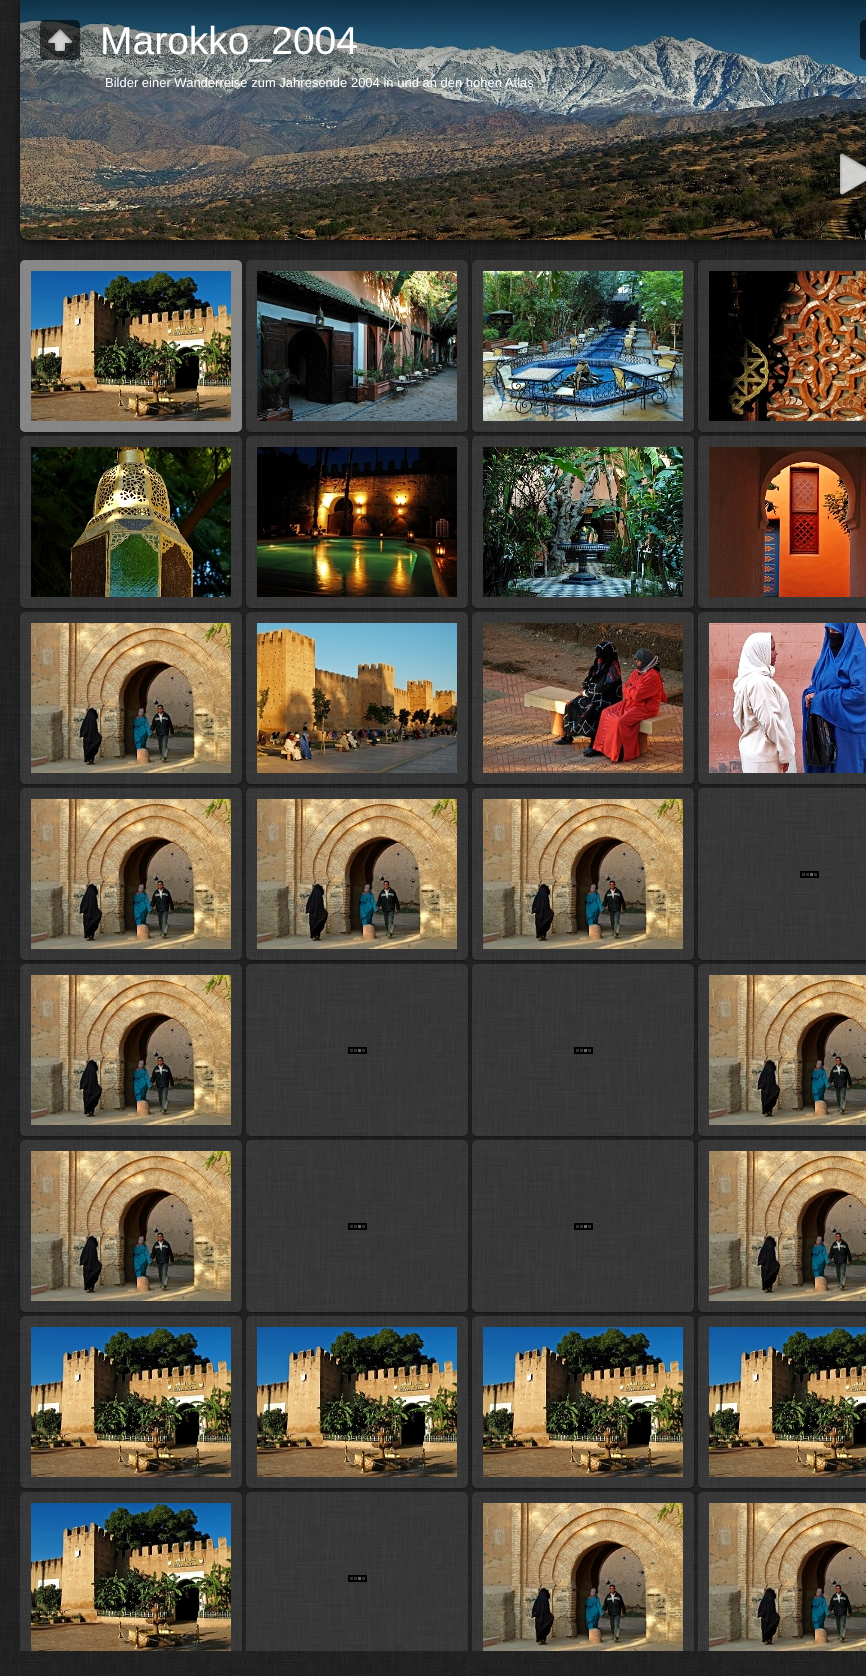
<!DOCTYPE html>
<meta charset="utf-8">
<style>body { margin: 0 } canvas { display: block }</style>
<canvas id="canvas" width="866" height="1676"></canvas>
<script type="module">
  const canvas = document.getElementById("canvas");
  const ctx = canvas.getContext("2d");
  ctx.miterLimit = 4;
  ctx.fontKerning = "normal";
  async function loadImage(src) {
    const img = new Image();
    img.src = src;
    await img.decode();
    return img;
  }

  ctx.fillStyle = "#222222";
  ctx.fillRect(0, 0, 866, 1676);
  ctx.drawImage(await loadImage("img1.png"), 0, 0, 866, 1676);
  ctx.fillStyle = "rgba(0, 0, 0, 0.6)";
  ctx.filter = "blur(4px)";
  ctx.beginPath();
  ctx.roundRect(21, 3, 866, 240, 9);
  ctx.fill();
  ctx.filter = "none";
  ctx.fillStyle = "rgba(0, 0, 0, 0.2)";
  ctx.beginPath();
  ctx.roundRect(20, 0, 846, 240, [0, 0, 0, 9]);
  ctx.fill();
  ctx.drawImage(await loadImage("img2.png"), 20, 0, 846, 240);
  ctx.fillStyle = "rgba(0, 0, 0, 0.6)";
  ctx.beginPath();
  ctx.roundRect(40, 20, 40, 40, 5);
  ctx.fill();
  ctx.drawImage(await loadImage("img3.png"), 48, 29, 24, 22);
  ctx.font = "39px Liberation Sans";
  ctx.fillStyle = "#ffffff";
  ctx.fillText("Marokko_2004", 100, 54);
  ctx.font = "13px Liberation Sans";
  ctx.fillText("Bilder einer Wanderreise zum Jahresende 2004 in und an den hohen Atlas", 105, 87);
  ctx.fillStyle = "rgba(0, 0, 0, 0.6)";
  ctx.beginPath();
  ctx.roundRect(860, 20, 6, 40, [5, 0, 0, 5]);
  ctx.fill();
  ctx.fillStyle = "rgba(0, 0, 0, 0.2)";
  ctx.beginPath();
  ctx.roundRect(810, 130, 56, 90, [5, 0, 0, 5]);
  ctx.fill();
  ctx.drawImage(await loadImage("img4.png"), 840, 153, 26, 42);
  ctx.save();
  ctx.beginPath();
  ctx.moveTo(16, 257);
  ctx.lineTo(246, 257);
  ctx.lineTo(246, 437);
  ctx.lineTo(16, 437);
  ctx.closePath();
  ctx.moveTo(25, 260);
  ctx.lineTo(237, 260);
  ctx.bezierCurveTo(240, 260, 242, 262, 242, 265);
  ctx.lineTo(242, 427);
  ctx.bezierCurveTo(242, 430, 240, 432, 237, 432);
  ctx.lineTo(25, 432);
  ctx.bezierCurveTo(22, 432, 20, 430, 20, 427);
  ctx.lineTo(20, 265);
  ctx.bezierCurveTo(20, 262, 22, 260, 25, 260);
  ctx.closePath();
  ctx.clip("evenodd");
  ctx.fillStyle = "rgba(0, 0, 0, 0.4)";
  ctx.filter = "blur(1px)";
  ctx.beginPath();
  ctx.roundRect(20, 261, 222, 172, 5);
  ctx.fill();
  ctx.filter = "none";
  ctx.restore();
  ctx.fillStyle = "rgba(255, 255, 255, 0.1)";
  ctx.beginPath();
  ctx.roundRect(20, 260, 222, 172, 5);
  ctx.fill();
  ctx.fillStyle = "rgba(255, 255, 255, 0.4)";
  ctx.beginPath();
  ctx.roundRect(20, 260, 222, 172, 5);
  ctx.fill();
  ctx.drawImage(await loadImage("img5.png"), 31, 271, 200, 150);
  ctx.save();
  ctx.beginPath();
  ctx.moveTo(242, 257);
  ctx.lineTo(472, 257);
  ctx.lineTo(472, 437);
  ctx.lineTo(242, 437);
  ctx.closePath();
  ctx.moveTo(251, 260);
  ctx.lineTo(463, 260);
  ctx.bezierCurveTo(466, 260, 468, 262, 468, 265);
  ctx.lineTo(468, 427);
  ctx.bezierCurveTo(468, 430, 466, 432, 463, 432);
  ctx.lineTo(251, 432);
  ctx.bezierCurveTo(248, 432, 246, 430, 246, 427);
  ctx.lineTo(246, 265);
  ctx.bezierCurveTo(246, 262, 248, 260, 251, 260);
  ctx.closePath();
  ctx.clip("evenodd");
  ctx.fillStyle = "rgba(0, 0, 0, 0.4)";
  ctx.filter = "blur(1px)";
  ctx.beginPath();
  ctx.roundRect(246, 261, 222, 172, 5);
  ctx.fill();
  ctx.filter = "none";
  ctx.restore();
  ctx.fillStyle = "rgba(255, 255, 255, 0.1)";
  ctx.beginPath();
  ctx.roundRect(246, 260, 222, 172, 5);
  ctx.fill();
  ctx.drawImage(await loadImage("img6.png"), 257, 271, 200, 150);
  ctx.save();
  ctx.beginPath();
  ctx.moveTo(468, 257);
  ctx.lineTo(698, 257);
  ctx.lineTo(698, 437);
  ctx.lineTo(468, 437);
  ctx.closePath();
  ctx.moveTo(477, 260);
  ctx.lineTo(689, 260);
  ctx.bezierCurveTo(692, 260, 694, 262, 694, 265);
  ctx.lineTo(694, 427);
  ctx.bezierCurveTo(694, 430, 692, 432, 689, 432);
  ctx.lineTo(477, 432);
  ctx.bezierCurveTo(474, 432, 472, 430, 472, 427);
  ctx.lineTo(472, 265);
  ctx.bezierCurveTo(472, 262, 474, 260, 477, 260);
  ctx.closePath();
  ctx.clip("evenodd");
  ctx.fillStyle = "rgba(0, 0, 0, 0.4)";
  ctx.filter = "blur(1px)";
  ctx.beginPath();
  ctx.roundRect(472, 261, 222, 172, 5);
  ctx.fill();
  ctx.filter = "none";
  ctx.restore();
  ctx.beginPath();
  ctx.roundRect(472, 260, 222, 172, 5);
  ctx.fill();
  ctx.drawImage(await loadImage("img7.png"), 483, 271, 200, 150);
  ctx.save();
  ctx.beginPath();
  ctx.moveTo(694, 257);
  ctx.lineTo(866, 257);
  ctx.lineTo(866, 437);
  ctx.lineTo(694, 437);
  ctx.closePath();
  ctx.moveTo(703, 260);
  ctx.lineTo(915, 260);
  ctx.bezierCurveTo(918, 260, 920, 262, 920, 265);
  ctx.lineTo(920, 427);
  ctx.bezierCurveTo(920, 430, 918, 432, 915, 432);
  ctx.lineTo(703, 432);
  ctx.bezierCurveTo(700, 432, 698, 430, 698, 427);
  ctx.lineTo(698, 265);
  ctx.bezierCurveTo(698, 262, 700, 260, 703, 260);
  ctx.closePath();
  ctx.clip("evenodd");
  ctx.fillStyle = "rgba(0, 0, 0, 0.4)";
  ctx.filter = "blur(1px)";
  ctx.beginPath();
  ctx.roundRect(698, 261, 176, 172, 5);
  ctx.fill();
  ctx.filter = "none";
  ctx.restore();
  ctx.beginPath();
  ctx.roundRect(698, 260, 168, 172, [5, 0, 0, 5]);
  ctx.fill();
  ctx.drawImage(await loadImage("img8.png"), 709, 271, 157, 150);
  ctx.save();
  ctx.beginPath();
  ctx.moveTo(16, 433);
  ctx.lineTo(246, 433);
  ctx.lineTo(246, 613);
  ctx.lineTo(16, 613);
  ctx.closePath();
  ctx.moveTo(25, 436);
  ctx.lineTo(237, 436);
  ctx.bezierCurveTo(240, 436, 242, 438, 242, 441);
  ctx.lineTo(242, 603);
  ctx.bezierCurveTo(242, 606, 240, 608, 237, 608);
  ctx.lineTo(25, 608);
  ctx.bezierCurveTo(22, 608, 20, 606, 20, 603);
  ctx.lineTo(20, 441);
  ctx.bezierCurveTo(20, 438, 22, 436, 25, 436);
  ctx.closePath();
  ctx.clip("evenodd");
  ctx.fillStyle = "rgba(0, 0, 0, 0.4)";
  ctx.filter = "blur(1px)";
  ctx.beginPath();
  ctx.roundRect(20, 437, 222, 172, 5);
  ctx.fill();
  ctx.filter = "none";
  ctx.restore();
  ctx.beginPath();
  ctx.roundRect(20, 436, 222, 172, 5);
  ctx.fill();
  ctx.drawImage(await loadImage("img9.png"), 31, 447, 200, 150);
  ctx.save();
  ctx.beginPath();
  ctx.moveTo(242, 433);
  ctx.lineTo(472, 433);
  ctx.lineTo(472, 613);
  ctx.lineTo(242, 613);
  ctx.closePath();
  ctx.moveTo(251, 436);
  ctx.lineTo(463, 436);
  ctx.bezierCurveTo(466, 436, 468, 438, 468, 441);
  ctx.lineTo(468, 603);
  ctx.bezierCurveTo(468, 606, 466, 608, 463, 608);
  ctx.lineTo(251, 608);
  ctx.bezierCurveTo(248, 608, 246, 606, 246, 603);
  ctx.lineTo(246, 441);
  ctx.bezierCurveTo(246, 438, 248, 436, 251, 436);
  ctx.closePath();
  ctx.clip("evenodd");
  ctx.fillStyle = "rgba(0, 0, 0, 0.4)";
  ctx.filter = "blur(1px)";
  ctx.beginPath();
  ctx.roundRect(246, 437, 222, 172, 5);
  ctx.fill();
  ctx.filter = "none";
  ctx.restore();
  ctx.beginPath();
  ctx.roundRect(246, 436, 222, 172, 5);
  ctx.fill();
  ctx.drawImage(await loadImage("img10.png"), 257, 447, 200, 150);
  ctx.save();
  ctx.beginPath();
  ctx.moveTo(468, 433);
  ctx.lineTo(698, 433);
  ctx.lineTo(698, 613);
  ctx.lineTo(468, 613);
  ctx.closePath();
  ctx.moveTo(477, 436);
  ctx.lineTo(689, 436);
  ctx.bezierCurveTo(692, 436, 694, 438, 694, 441);
  ctx.lineTo(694, 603);
  ctx.bezierCurveTo(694, 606, 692, 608, 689, 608);
  ctx.lineTo(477, 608);
  ctx.bezierCurveTo(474, 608, 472, 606, 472, 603);
  ctx.lineTo(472, 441);
  ctx.bezierCurveTo(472, 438, 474, 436, 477, 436);
  ctx.closePath();
  ctx.clip("evenodd");
  ctx.fillStyle = "rgba(0, 0, 0, 0.4)";
  ctx.filter = "blur(1px)";
  ctx.beginPath();
  ctx.roundRect(472, 437, 222, 172, 5);
  ctx.fill();
  ctx.filter = "none";
  ctx.restore();
  ctx.beginPath();
  ctx.roundRect(472, 436, 222, 172, 5);
  ctx.fill();
  ctx.drawImage(await loadImage("img11.png"), 483, 447, 200, 150);
  ctx.save();
  ctx.beginPath();
  ctx.moveTo(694, 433);
  ctx.lineTo(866, 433);
  ctx.lineTo(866, 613);
  ctx.lineTo(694, 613);
  ctx.closePath();
  ctx.moveTo(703, 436);
  ctx.lineTo(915, 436);
  ctx.bezierCurveTo(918, 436, 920, 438, 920, 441);
  ctx.lineTo(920, 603);
  ctx.bezierCurveTo(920, 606, 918, 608, 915, 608);
  ctx.lineTo(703, 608);
  ctx.bezierCurveTo(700, 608, 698, 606, 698, 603);
  ctx.lineTo(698, 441);
  ctx.bezierCurveTo(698, 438, 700, 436, 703, 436);
  ctx.closePath();
  ctx.clip("evenodd");
  ctx.fillStyle = "rgba(0, 0, 0, 0.4)";
  ctx.filter = "blur(1px)";
  ctx.beginPath();
  ctx.roundRect(698, 437, 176, 172, 5);
  ctx.fill();
  ctx.filter = "none";
  ctx.restore();
  ctx.beginPath();
  ctx.roundRect(698, 436, 168, 172, [5, 0, 0, 5]);
  ctx.fill();
  ctx.drawImage(await loadImage("img12.png"), 709, 447, 157, 150);
  ctx.save();
  ctx.beginPath();
  ctx.moveTo(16, 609);
  ctx.lineTo(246, 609);
  ctx.lineTo(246, 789);
  ctx.lineTo(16, 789);
  ctx.closePath();
  ctx.moveTo(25, 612);
  ctx.lineTo(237, 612);
  ctx.bezierCurveTo(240, 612, 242, 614, 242, 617);
  ctx.lineTo(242, 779);
  ctx.bezierCurveTo(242, 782, 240, 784, 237, 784);
  ctx.lineTo(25, 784);
  ctx.bezierCurveTo(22, 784, 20, 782, 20, 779);
  ctx.lineTo(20, 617);
  ctx.bezierCurveTo(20, 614, 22, 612, 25, 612);
  ctx.closePath();
  ctx.clip("evenodd");
  ctx.fillStyle = "rgba(0, 0, 0, 0.4)";
  ctx.filter = "blur(1px)";
  ctx.beginPath();
  ctx.roundRect(20, 613, 222, 172, 5);
  ctx.fill();
  ctx.filter = "none";
  ctx.restore();
  ctx.beginPath();
  ctx.roundRect(20, 612, 222, 172, 5);
  ctx.fill();
  ctx.drawImage(await loadImage("img13.png"), 31, 623, 200, 150);
  ctx.save();
  ctx.beginPath();
  ctx.moveTo(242, 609);
  ctx.lineTo(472, 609);
  ctx.lineTo(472, 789);
  ctx.lineTo(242, 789);
  ctx.closePath();
  ctx.moveTo(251, 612);
  ctx.lineTo(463, 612);
  ctx.bezierCurveTo(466, 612, 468, 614, 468, 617);
  ctx.lineTo(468, 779);
  ctx.bezierCurveTo(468, 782, 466, 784, 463, 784);
  ctx.lineTo(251, 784);
  ctx.bezierCurveTo(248, 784, 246, 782, 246, 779);
  ctx.lineTo(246, 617);
  ctx.bezierCurveTo(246, 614, 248, 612, 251, 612);
  ctx.closePath();
  ctx.clip("evenodd");
  ctx.fillStyle = "rgba(0, 0, 0, 0.4)";
  ctx.filter = "blur(1px)";
  ctx.beginPath();
  ctx.roundRect(246, 613, 222, 172, 5);
  ctx.fill();
  ctx.filter = "none";
  ctx.restore();
  ctx.beginPath();
  ctx.roundRect(246, 612, 222, 172, 5);
  ctx.fill();
  ctx.drawImage(await loadImage("img14.png"), 257, 623, 200, 150);
  ctx.save();
  ctx.beginPath();
  ctx.moveTo(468, 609);
  ctx.lineTo(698, 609);
  ctx.lineTo(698, 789);
  ctx.lineTo(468, 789);
  ctx.closePath();
  ctx.moveTo(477, 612);
  ctx.lineTo(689, 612);
  ctx.bezierCurveTo(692, 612, 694, 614, 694, 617);
  ctx.lineTo(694, 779);
  ctx.bezierCurveTo(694, 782, 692, 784, 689, 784);
  ctx.lineTo(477, 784);
  ctx.bezierCurveTo(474, 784, 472, 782, 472, 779);
  ctx.lineTo(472, 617);
  ctx.bezierCurveTo(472, 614, 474, 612, 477, 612);
  ctx.closePath();
  ctx.clip("evenodd");
  ctx.fillStyle = "rgba(0, 0, 0, 0.4)";
  ctx.filter = "blur(1px)";
  ctx.beginPath();
  ctx.roundRect(472, 613, 222, 172, 5);
  ctx.fill();
  ctx.filter = "none";
  ctx.restore();
  ctx.beginPath();
  ctx.roundRect(472, 612, 222, 172, 5);
  ctx.fill();
  ctx.drawImage(await loadImage("img15.png"), 483, 623, 200, 150);
  ctx.save();
  ctx.beginPath();
  ctx.moveTo(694, 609);
  ctx.lineTo(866, 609);
  ctx.lineTo(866, 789);
  ctx.lineTo(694, 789);
  ctx.closePath();
  ctx.moveTo(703, 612);
  ctx.lineTo(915, 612);
  ctx.bezierCurveTo(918, 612, 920, 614, 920, 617);
  ctx.lineTo(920, 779);
  ctx.bezierCurveTo(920, 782, 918, 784, 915, 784);
  ctx.lineTo(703, 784);
  ctx.bezierCurveTo(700, 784, 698, 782, 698, 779);
  ctx.lineTo(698, 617);
  ctx.bezierCurveTo(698, 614, 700, 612, 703, 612);
  ctx.closePath();
  ctx.clip("evenodd");
  ctx.fillStyle = "rgba(0, 0, 0, 0.4)";
  ctx.filter = "blur(1px)";
  ctx.beginPath();
  ctx.roundRect(698, 613, 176, 172, 5);
  ctx.fill();
  ctx.filter = "none";
  ctx.restore();
  ctx.beginPath();
  ctx.roundRect(698, 612, 168, 172, [5, 0, 0, 5]);
  ctx.fill();
  ctx.drawImage(await loadImage("img16.png"), 709, 623, 157, 150);
  ctx.save();
  ctx.beginPath();
  ctx.moveTo(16, 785);
  ctx.lineTo(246, 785);
  ctx.lineTo(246, 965);
  ctx.lineTo(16, 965);
  ctx.closePath();
  ctx.moveTo(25, 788);
  ctx.lineTo(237, 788);
  ctx.bezierCurveTo(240, 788, 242, 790, 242, 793);
  ctx.lineTo(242, 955);
  ctx.bezierCurveTo(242, 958, 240, 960, 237, 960);
  ctx.lineTo(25, 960);
  ctx.bezierCurveTo(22, 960, 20, 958, 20, 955);
  ctx.lineTo(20, 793);
  ctx.bezierCurveTo(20, 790, 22, 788, 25, 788);
  ctx.closePath();
  ctx.clip("evenodd");
  ctx.fillStyle = "rgba(0, 0, 0, 0.4)";
  ctx.filter = "blur(1px)";
  ctx.beginPath();
  ctx.roundRect(20, 789, 222, 172, 5);
  ctx.fill();
  ctx.filter = "none";
  ctx.restore();
  ctx.beginPath();
  ctx.roundRect(20, 788, 222, 172, 5);
  ctx.fill();
  ctx.drawImage(await loadImage("img13.png"), 31, 799, 200, 150);
  ctx.save();
  ctx.beginPath();
  ctx.moveTo(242, 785);
  ctx.lineTo(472, 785);
  ctx.lineTo(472, 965);
  ctx.lineTo(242, 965);
  ctx.closePath();
  ctx.moveTo(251, 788);
  ctx.lineTo(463, 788);
  ctx.bezierCurveTo(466, 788, 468, 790, 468, 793);
  ctx.lineTo(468, 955);
  ctx.bezierCurveTo(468, 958, 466, 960, 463, 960);
  ctx.lineTo(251, 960);
  ctx.bezierCurveTo(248, 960, 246, 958, 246, 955);
  ctx.lineTo(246, 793);
  ctx.bezierCurveTo(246, 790, 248, 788, 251, 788);
  ctx.closePath();
  ctx.clip("evenodd");
  ctx.fillStyle = "rgba(0, 0, 0, 0.4)";
  ctx.filter = "blur(1px)";
  ctx.beginPath();
  ctx.roundRect(246, 789, 222, 172, 5);
  ctx.fill();
  ctx.filter = "none";
  ctx.restore();
  ctx.beginPath();
  ctx.roundRect(246, 788, 222, 172, 5);
  ctx.fill();
  ctx.drawImage(await loadImage("img13.png"), 257, 799, 200, 150);
  ctx.save();
  ctx.beginPath();
  ctx.moveTo(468, 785);
  ctx.lineTo(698, 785);
  ctx.lineTo(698, 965);
  ctx.lineTo(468, 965);
  ctx.closePath();
  ctx.moveTo(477, 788);
  ctx.lineTo(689, 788);
  ctx.bezierCurveTo(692, 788, 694, 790, 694, 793);
  ctx.lineTo(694, 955);
  ctx.bezierCurveTo(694, 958, 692, 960, 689, 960);
  ctx.lineTo(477, 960);
  ctx.bezierCurveTo(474, 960, 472, 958, 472, 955);
  ctx.lineTo(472, 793);
  ctx.bezierCurveTo(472, 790, 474, 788, 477, 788);
  ctx.closePath();
  ctx.clip("evenodd");
  ctx.fillStyle = "rgba(0, 0, 0, 0.4)";
  ctx.filter = "blur(1px)";
  ctx.beginPath();
  ctx.roundRect(472, 789, 222, 172, 5);
  ctx.fill();
  ctx.filter = "none";
  ctx.restore();
  ctx.beginPath();
  ctx.roundRect(472, 788, 222, 172, 5);
  ctx.fill();
  ctx.drawImage(await loadImage("img13.png"), 483, 799, 200, 150);
  ctx.save();
  ctx.beginPath();
  ctx.moveTo(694, 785);
  ctx.lineTo(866, 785);
  ctx.lineTo(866, 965);
  ctx.lineTo(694, 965);
  ctx.closePath();
  ctx.moveTo(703, 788);
  ctx.lineTo(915, 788);
  ctx.bezierCurveTo(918, 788, 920, 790, 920, 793);
  ctx.lineTo(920, 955);
  ctx.bezierCurveTo(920, 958, 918, 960, 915, 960);
  ctx.lineTo(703, 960);
  ctx.bezierCurveTo(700, 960, 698, 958, 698, 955);
  ctx.lineTo(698, 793);
  ctx.bezierCurveTo(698, 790, 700, 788, 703, 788);
  ctx.closePath();
  ctx.clip("evenodd");
  ctx.fillStyle = "rgba(0, 0, 0, 0.4)";
  ctx.filter = "blur(1px)";
  ctx.beginPath();
  ctx.roundRect(698, 789, 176, 172, 5);
  ctx.fill();
  ctx.filter = "none";
  ctx.restore();
  ctx.beginPath();
  ctx.roundRect(698, 788, 168, 172, [5, 0, 0, 5]);
  ctx.fill();
  ctx.drawImage(await loadImage("img17.png"), 800, 871, 19, 7);
  ctx.save();
  ctx.beginPath();
  ctx.moveTo(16, 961);
  ctx.lineTo(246, 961);
  ctx.lineTo(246, 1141);
  ctx.lineTo(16, 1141);
  ctx.closePath();
  ctx.moveTo(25, 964);
  ctx.lineTo(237, 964);
  ctx.bezierCurveTo(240, 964, 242, 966, 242, 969);
  ctx.lineTo(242, 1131);
  ctx.bezierCurveTo(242, 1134, 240, 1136, 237, 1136);
  ctx.lineTo(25, 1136);
  ctx.bezierCurveTo(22, 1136, 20, 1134, 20, 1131);
  ctx.lineTo(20, 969);
  ctx.bezierCurveTo(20, 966, 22, 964, 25, 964);
  ctx.closePath();
  ctx.clip("evenodd");
  ctx.fillStyle = "rgba(0, 0, 0, 0.4)";
  ctx.filter = "blur(1px)";
  ctx.beginPath();
  ctx.roundRect(20, 965, 222, 172, 5);
  ctx.fill();
  ctx.filter = "none";
  ctx.restore();
  ctx.beginPath();
  ctx.roundRect(20, 964, 222, 172, 5);
  ctx.fill();
  ctx.drawImage(await loadImage("img13.png"), 31, 975, 200, 150);
  ctx.save();
  ctx.beginPath();
  ctx.moveTo(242, 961);
  ctx.lineTo(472, 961);
  ctx.lineTo(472, 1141);
  ctx.lineTo(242, 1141);
  ctx.closePath();
  ctx.moveTo(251, 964);
  ctx.lineTo(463, 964);
  ctx.bezierCurveTo(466, 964, 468, 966, 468, 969);
  ctx.lineTo(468, 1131);
  ctx.bezierCurveTo(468, 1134, 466, 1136, 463, 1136);
  ctx.lineTo(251, 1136);
  ctx.bezierCurveTo(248, 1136, 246, 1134, 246, 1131);
  ctx.lineTo(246, 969);
  ctx.bezierCurveTo(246, 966, 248, 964, 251, 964);
  ctx.closePath();
  ctx.clip("evenodd");
  ctx.fillStyle = "rgba(0, 0, 0, 0.4)";
  ctx.filter = "blur(1px)";
  ctx.beginPath();
  ctx.roundRect(246, 965, 222, 172, 5);
  ctx.fill();
  ctx.filter = "none";
  ctx.restore();
  ctx.beginPath();
  ctx.roundRect(246, 964, 222, 172, 5);
  ctx.fill();
  ctx.drawImage(await loadImage("img17.png"), 348, 1047, 19, 7);
  ctx.save();
  ctx.beginPath();
  ctx.moveTo(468, 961);
  ctx.lineTo(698, 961);
  ctx.lineTo(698, 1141);
  ctx.lineTo(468, 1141);
  ctx.closePath();
  ctx.moveTo(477, 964);
  ctx.lineTo(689, 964);
  ctx.bezierCurveTo(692, 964, 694, 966, 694, 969);
  ctx.lineTo(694, 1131);
  ctx.bezierCurveTo(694, 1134, 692, 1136, 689, 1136);
  ctx.lineTo(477, 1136);
  ctx.bezierCurveTo(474, 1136, 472, 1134, 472, 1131);
  ctx.lineTo(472, 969);
  ctx.bezierCurveTo(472, 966, 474, 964, 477, 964);
  ctx.closePath();
  ctx.clip("evenodd");
  ctx.fillStyle = "rgba(0, 0, 0, 0.4)";
  ctx.filter = "blur(1px)";
  ctx.beginPath();
  ctx.roundRect(472, 965, 222, 172, 5);
  ctx.fill();
  ctx.filter = "none";
  ctx.restore();
  ctx.beginPath();
  ctx.roundRect(472, 964, 222, 172, 5);
  ctx.fill();
  ctx.drawImage(await loadImage("img17.png"), 574, 1047, 19, 7);
  ctx.save();
  ctx.beginPath();
  ctx.moveTo(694, 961);
  ctx.lineTo(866, 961);
  ctx.lineTo(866, 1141);
  ctx.lineTo(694, 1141);
  ctx.closePath();
  ctx.moveTo(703, 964);
  ctx.lineTo(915, 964);
  ctx.bezierCurveTo(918, 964, 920, 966, 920, 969);
  ctx.lineTo(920, 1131);
  ctx.bezierCurveTo(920, 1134, 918, 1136, 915, 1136);
  ctx.lineTo(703, 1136);
  ctx.bezierCurveTo(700, 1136, 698, 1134, 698, 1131);
  ctx.lineTo(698, 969);
  ctx.bezierCurveTo(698, 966, 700, 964, 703, 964);
  ctx.closePath();
  ctx.clip("evenodd");
  ctx.fillStyle = "rgba(0, 0, 0, 0.4)";
  ctx.filter = "blur(1px)";
  ctx.beginPath();
  ctx.roundRect(698, 965, 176, 172, 5);
  ctx.fill();
  ctx.filter = "none";
  ctx.restore();
  ctx.beginPath();
  ctx.roundRect(698, 964, 168, 172, [5, 0, 0, 5]);
  ctx.fill();
  ctx.drawImage(await loadImage("img18.png"), 709, 975, 157, 150);
  ctx.save();
  ctx.beginPath();
  ctx.moveTo(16, 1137);
  ctx.lineTo(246, 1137);
  ctx.lineTo(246, 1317);
  ctx.lineTo(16, 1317);
  ctx.closePath();
  ctx.moveTo(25, 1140);
  ctx.lineTo(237, 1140);
  ctx.bezierCurveTo(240, 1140, 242, 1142, 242, 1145);
  ctx.lineTo(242, 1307);
  ctx.bezierCurveTo(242, 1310, 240, 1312, 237, 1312);
  ctx.lineTo(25, 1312);
  ctx.bezierCurveTo(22, 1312, 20, 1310, 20, 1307);
  ctx.lineTo(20, 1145);
  ctx.bezierCurveTo(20, 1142, 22, 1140, 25, 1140);
  ctx.closePath();
  ctx.clip("evenodd");
  ctx.fillStyle = "rgba(0, 0, 0, 0.4)";
  ctx.filter = "blur(1px)";
  ctx.beginPath();
  ctx.roundRect(20, 1141, 222, 172, 5);
  ctx.fill();
  ctx.filter = "none";
  ctx.restore();
  ctx.beginPath();
  ctx.roundRect(20, 1140, 222, 172, 5);
  ctx.fill();
  ctx.drawImage(await loadImage("img13.png"), 31, 1151, 200, 150);
  ctx.save();
  ctx.beginPath();
  ctx.moveTo(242, 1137);
  ctx.lineTo(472, 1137);
  ctx.lineTo(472, 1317);
  ctx.lineTo(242, 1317);
  ctx.closePath();
  ctx.moveTo(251, 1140);
  ctx.lineTo(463, 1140);
  ctx.bezierCurveTo(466, 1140, 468, 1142, 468, 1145);
  ctx.lineTo(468, 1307);
  ctx.bezierCurveTo(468, 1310, 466, 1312, 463, 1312);
  ctx.lineTo(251, 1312);
  ctx.bezierCurveTo(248, 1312, 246, 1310, 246, 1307);
  ctx.lineTo(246, 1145);
  ctx.bezierCurveTo(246, 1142, 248, 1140, 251, 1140);
  ctx.closePath();
  ctx.clip("evenodd");
  ctx.fillStyle = "rgba(0, 0, 0, 0.4)";
  ctx.filter = "blur(1px)";
  ctx.beginPath();
  ctx.roundRect(246, 1141, 222, 172, 5);
  ctx.fill();
  ctx.filter = "none";
  ctx.restore();
  ctx.beginPath();
  ctx.roundRect(246, 1140, 222, 172, 5);
  ctx.fill();
  ctx.drawImage(await loadImage("img17.png"), 348, 1223, 19, 7);
  ctx.save();
  ctx.beginPath();
  ctx.moveTo(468, 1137);
  ctx.lineTo(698, 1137);
  ctx.lineTo(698, 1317);
  ctx.lineTo(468, 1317);
  ctx.closePath();
  ctx.moveTo(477, 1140);
  ctx.lineTo(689, 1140);
  ctx.bezierCurveTo(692, 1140, 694, 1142, 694, 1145);
  ctx.lineTo(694, 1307);
  ctx.bezierCurveTo(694, 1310, 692, 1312, 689, 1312);
  ctx.lineTo(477, 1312);
  ctx.bezierCurveTo(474, 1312, 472, 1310, 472, 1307);
  ctx.lineTo(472, 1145);
  ctx.bezierCurveTo(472, 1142, 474, 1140, 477, 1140);
  ctx.closePath();
  ctx.clip("evenodd");
  ctx.fillStyle = "rgba(0, 0, 0, 0.4)";
  ctx.filter = "blur(1px)";
  ctx.beginPath();
  ctx.roundRect(472, 1141, 222, 172, 5);
  ctx.fill();
  ctx.filter = "none";
  ctx.restore();
  ctx.beginPath();
  ctx.roundRect(472, 1140, 222, 172, 5);
  ctx.fill();
  ctx.drawImage(await loadImage("img17.png"), 574, 1223, 19, 7);
  ctx.save();
  ctx.beginPath();
  ctx.moveTo(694, 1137);
  ctx.lineTo(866, 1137);
  ctx.lineTo(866, 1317);
  ctx.lineTo(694, 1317);
  ctx.closePath();
  ctx.moveTo(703, 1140);
  ctx.lineTo(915, 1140);
  ctx.bezierCurveTo(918, 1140, 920, 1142, 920, 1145);
  ctx.lineTo(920, 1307);
  ctx.bezierCurveTo(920, 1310, 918, 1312, 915, 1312);
  ctx.lineTo(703, 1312);
  ctx.bezierCurveTo(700, 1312, 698, 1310, 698, 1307);
  ctx.lineTo(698, 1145);
  ctx.bezierCurveTo(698, 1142, 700, 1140, 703, 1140);
  ctx.closePath();
  ctx.clip("evenodd");
  ctx.fillStyle = "rgba(0, 0, 0, 0.4)";
  ctx.filter = "blur(1px)";
  ctx.beginPath();
  ctx.roundRect(698, 1141, 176, 172, 5);
  ctx.fill();
  ctx.filter = "none";
  ctx.restore();
  ctx.beginPath();
  ctx.roundRect(698, 1140, 168, 172, [5, 0, 0, 5]);
  ctx.fill();
  ctx.drawImage(await loadImage("img18.png"), 709, 1151, 157, 150);
  ctx.save();
  ctx.beginPath();
  ctx.moveTo(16, 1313);
  ctx.lineTo(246, 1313);
  ctx.lineTo(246, 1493);
  ctx.lineTo(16, 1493);
  ctx.closePath();
  ctx.moveTo(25, 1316);
  ctx.lineTo(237, 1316);
  ctx.bezierCurveTo(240, 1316, 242, 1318, 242, 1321);
  ctx.lineTo(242, 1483);
  ctx.bezierCurveTo(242, 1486, 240, 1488, 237, 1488);
  ctx.lineTo(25, 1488);
  ctx.bezierCurveTo(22, 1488, 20, 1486, 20, 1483);
  ctx.lineTo(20, 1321);
  ctx.bezierCurveTo(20, 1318, 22, 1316, 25, 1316);
  ctx.closePath();
  ctx.clip("evenodd");
  ctx.fillStyle = "rgba(0, 0, 0, 0.4)";
  ctx.filter = "blur(1px)";
  ctx.beginPath();
  ctx.roundRect(20, 1317, 222, 172, 5);
  ctx.fill();
  ctx.filter = "none";
  ctx.restore();
  ctx.beginPath();
  ctx.roundRect(20, 1316, 222, 172, 5);
  ctx.fill();
  ctx.drawImage(await loadImage("img5.png"), 31, 1327, 200, 150);
  ctx.save();
  ctx.beginPath();
  ctx.moveTo(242, 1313);
  ctx.lineTo(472, 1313);
  ctx.lineTo(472, 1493);
  ctx.lineTo(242, 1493);
  ctx.closePath();
  ctx.moveTo(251, 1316);
  ctx.lineTo(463, 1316);
  ctx.bezierCurveTo(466, 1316, 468, 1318, 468, 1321);
  ctx.lineTo(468, 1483);
  ctx.bezierCurveTo(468, 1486, 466, 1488, 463, 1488);
  ctx.lineTo(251, 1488);
  ctx.bezierCurveTo(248, 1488, 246, 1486, 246, 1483);
  ctx.lineTo(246, 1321);
  ctx.bezierCurveTo(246, 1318, 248, 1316, 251, 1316);
  ctx.closePath();
  ctx.clip("evenodd");
  ctx.fillStyle = "rgba(0, 0, 0, 0.4)";
  ctx.filter = "blur(1px)";
  ctx.beginPath();
  ctx.roundRect(246, 1317, 222, 172, 5);
  ctx.fill();
  ctx.filter = "none";
  ctx.restore();
  ctx.beginPath();
  ctx.roundRect(246, 1316, 222, 172, 5);
  ctx.fill();
  ctx.drawImage(await loadImage("img5.png"), 257, 1327, 200, 150);
  ctx.save();
  ctx.beginPath();
  ctx.moveTo(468, 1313);
  ctx.lineTo(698, 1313);
  ctx.lineTo(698, 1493);
  ctx.lineTo(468, 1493);
  ctx.closePath();
  ctx.moveTo(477, 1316);
  ctx.lineTo(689, 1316);
  ctx.bezierCurveTo(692, 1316, 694, 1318, 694, 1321);
  ctx.lineTo(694, 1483);
  ctx.bezierCurveTo(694, 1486, 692, 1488, 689, 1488);
  ctx.lineTo(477, 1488);
  ctx.bezierCurveTo(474, 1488, 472, 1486, 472, 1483);
  ctx.lineTo(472, 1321);
  ctx.bezierCurveTo(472, 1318, 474, 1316, 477, 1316);
  ctx.closePath();
  ctx.clip("evenodd");
  ctx.fillStyle = "rgba(0, 0, 0, 0.4)";
  ctx.filter = "blur(1px)";
  ctx.beginPath();
  ctx.roundRect(472, 1317, 222, 172, 5);
  ctx.fill();
  ctx.filter = "none";
  ctx.restore();
  ctx.beginPath();
  ctx.roundRect(472, 1316, 222, 172, 5);
  ctx.fill();
  ctx.drawImage(await loadImage("img5.png"), 483, 1327, 200, 150);
  ctx.save();
  ctx.beginPath();
  ctx.moveTo(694, 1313);
  ctx.lineTo(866, 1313);
  ctx.lineTo(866, 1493);
  ctx.lineTo(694, 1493);
  ctx.closePath();
  ctx.moveTo(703, 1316);
  ctx.lineTo(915, 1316);
  ctx.bezierCurveTo(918, 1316, 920, 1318, 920, 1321);
  ctx.lineTo(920, 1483);
  ctx.bezierCurveTo(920, 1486, 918, 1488, 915, 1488);
  ctx.lineTo(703, 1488);
  ctx.bezierCurveTo(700, 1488, 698, 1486, 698, 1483);
  ctx.lineTo(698, 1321);
  ctx.bezierCurveTo(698, 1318, 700, 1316, 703, 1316);
  ctx.closePath();
  ctx.clip("evenodd");
  ctx.fillStyle = "rgba(0, 0, 0, 0.4)";
  ctx.filter = "blur(1px)";
  ctx.beginPath();
  ctx.roundRect(698, 1317, 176, 172, 5);
  ctx.fill();
  ctx.filter = "none";
  ctx.restore();
  ctx.beginPath();
  ctx.roundRect(698, 1316, 168, 172, [5, 0, 0, 5]);
  ctx.fill();
  ctx.drawImage(await loadImage("img19.png"), 709, 1327, 157, 150);
  ctx.beginPath();
  ctx.roundRect(20, 1492, 222, 159, [5, 5, 0, 0]);
  ctx.fill();
  ctx.drawImage(await loadImage("img20.png"), 31, 1503, 200, 148);
  ctx.beginPath();
  ctx.roundRect(246, 1492, 222, 159, [5, 5, 0, 0]);
  ctx.fill();
  ctx.drawImage(await loadImage("img17.png"), 348, 1575, 19, 7);
  ctx.beginPath();
  ctx.roundRect(472, 1492, 222, 159, [5, 5, 0, 0]);
  ctx.fill();
  ctx.drawImage(await loadImage("img21.png"), 483, 1503, 200, 148);
  ctx.beginPath();
  ctx.roundRect(698, 1492, 168, 159, [5, 0, 0, 0]);
  ctx.fill();
  ctx.drawImage(await loadImage("img22.png"), 709, 1503, 157, 148);
</script>
